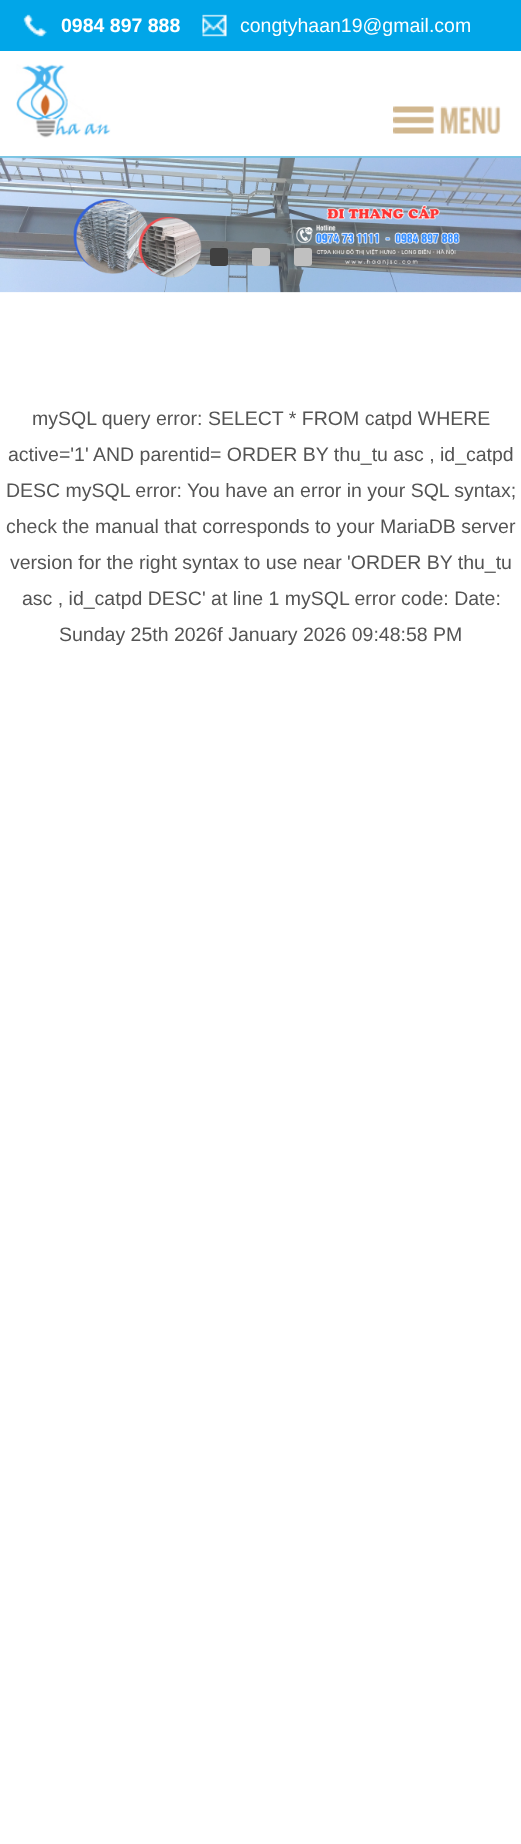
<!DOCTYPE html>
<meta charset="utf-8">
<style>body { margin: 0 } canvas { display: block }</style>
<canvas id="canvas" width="521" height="1844"></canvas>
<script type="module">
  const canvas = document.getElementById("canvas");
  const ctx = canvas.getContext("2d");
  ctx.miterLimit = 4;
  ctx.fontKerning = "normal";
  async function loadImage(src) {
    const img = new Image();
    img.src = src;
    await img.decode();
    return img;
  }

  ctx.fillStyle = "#ffffff";
  ctx.fillRect(0, 0, 521, 1844);
  ctx.fillStyle = "#01a6e8";
  ctx.fillRect(0, 0, 521, 51);
  ctx.drawImage(await loadImage("img1.png"), 23, 14, 24, 23);
  ctx.font = "bold 19.5px Liberation Sans";
  ctx.fillStyle = "#ffffff";
  ctx.fillText("0984 897 888", 61, 32);
  ctx.drawImage(await loadImage("img2.png"), 202, 14, 25, 23);
  ctx.font = "19.5px Liberation Sans";
  ctx.fillText("congtyhaan19@gmail.com", 240, 32);
  ctx.drawImage(await loadImage("img3.png"), 16, 64, 95, 74);
  ctx.drawImage(await loadImage("img4.png"), 393, 106, 108, 28);
  ctx.fillStyle = "#7bc6e4";
  ctx.fillRect(0, 156, 521, 2);
  ctx.drawImage(await loadImage("img5.png"), 0, 157, 521, 136);
  ctx.fillStyle = "#404040";
  ctx.beginPath();
  ctx.roundRect(210, 248, 18, 18, 3);
  ctx.fill();
  ctx.fillStyle = "#c0c0c0";
  ctx.beginPath();
  ctx.roundRect(252, 248, 18, 18, 3);
  ctx.fill();
  ctx.beginPath();
  ctx.roundRect(294, 248, 18, 18, 3);
  ctx.fill();
  ctx.fillStyle = "#545454";
  ctx.fillText("mySQL query error: SELECT * FROM catpd WHERE", 32, 425);
  ctx.fillText("active='1' AND parentid= ORDER BY thu_tu asc , id_catpd", 8, 461);
  ctx.fillText("DESC mySQL error: You have an error in your SQL syntax;", 6, 497);
  ctx.fillText("check the manual that corresponds to your MariaDB server", 6, 533);
  ctx.fillText("version for the right syntax to use near 'ORDER BY thu_tu", 10, 569);
  ctx.fillText("asc , id_catpd DESC' at line 1 mySQL error code: Date:", 22, 605);
  ctx.fillText("Sunday 25th 2026f January 2026 09:48:58 PM", 59, 641);
</script>
